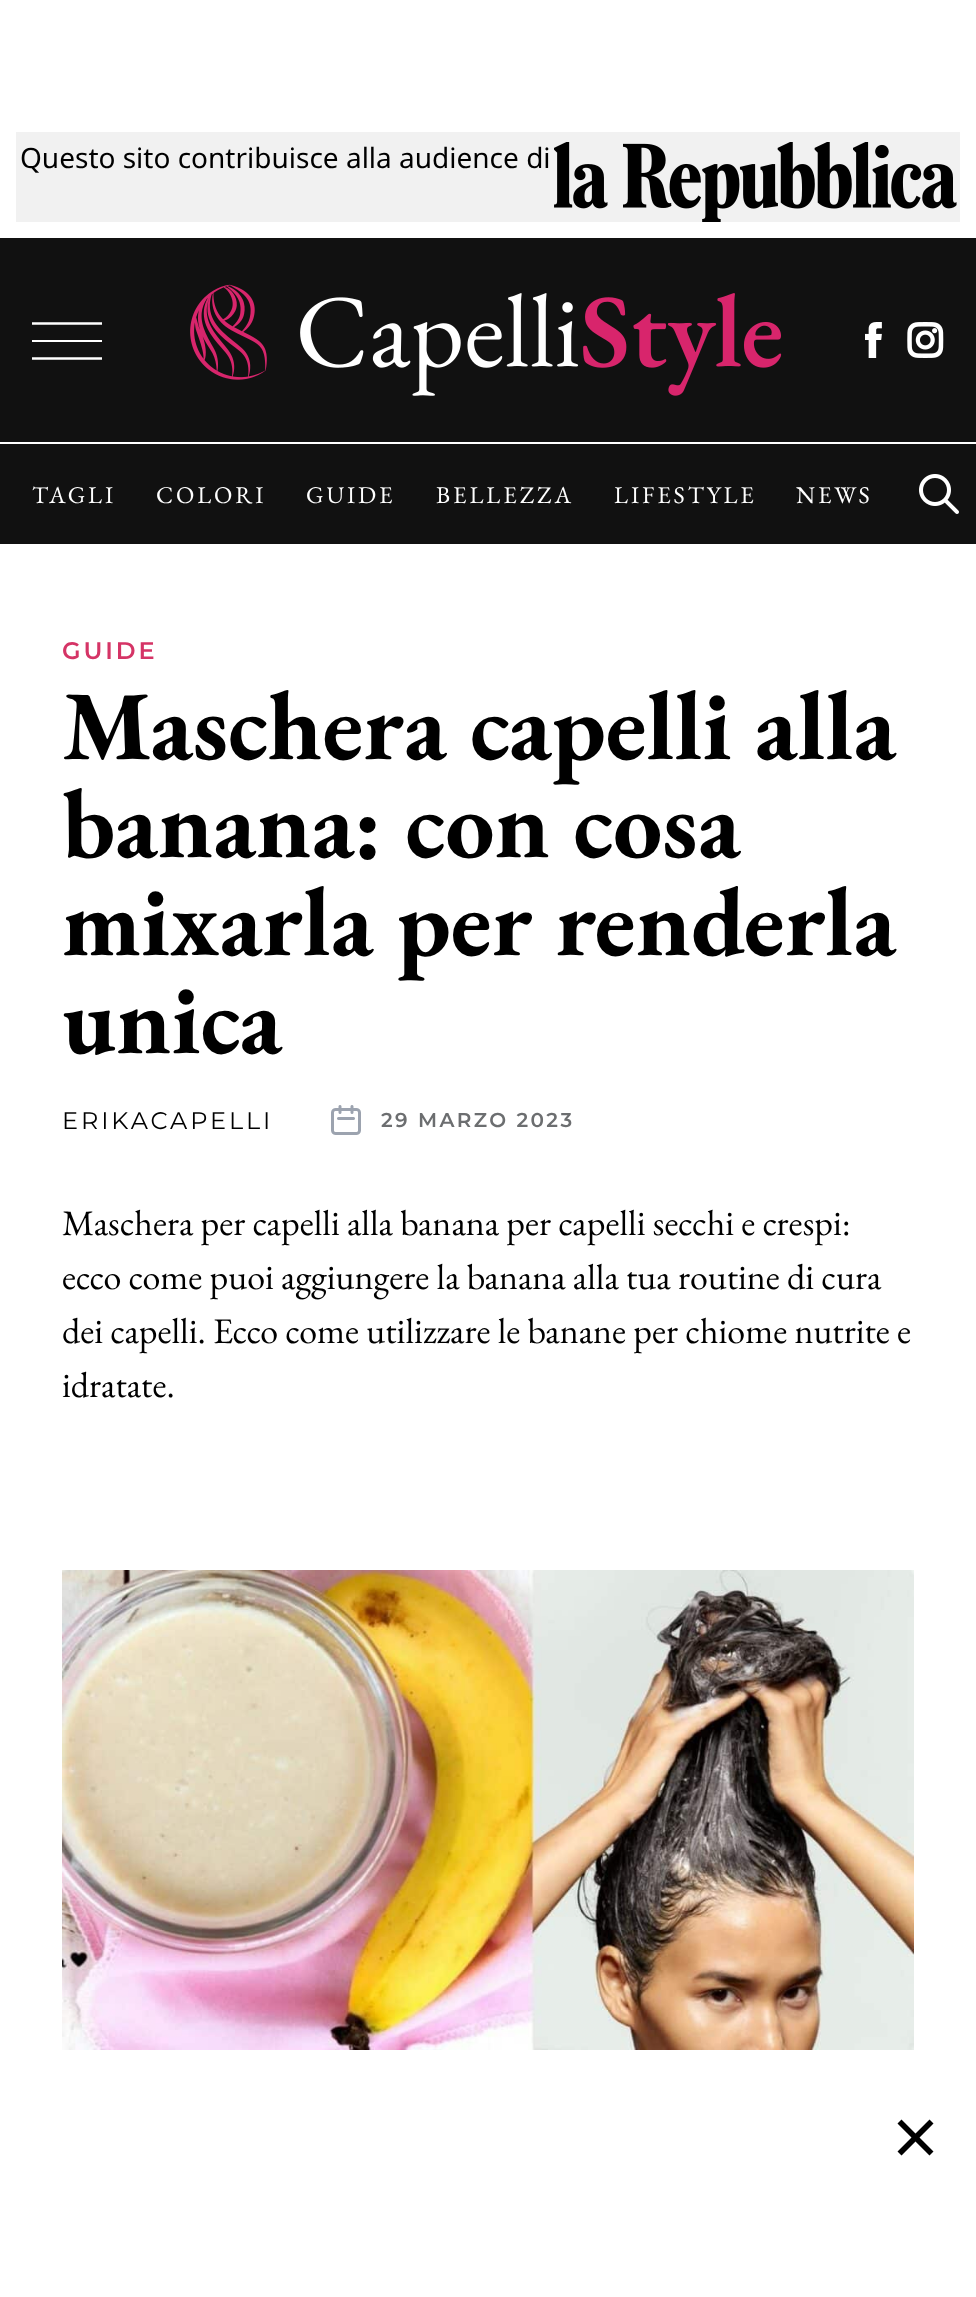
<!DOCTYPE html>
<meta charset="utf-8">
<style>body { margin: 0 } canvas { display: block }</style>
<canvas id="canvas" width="976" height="2297"></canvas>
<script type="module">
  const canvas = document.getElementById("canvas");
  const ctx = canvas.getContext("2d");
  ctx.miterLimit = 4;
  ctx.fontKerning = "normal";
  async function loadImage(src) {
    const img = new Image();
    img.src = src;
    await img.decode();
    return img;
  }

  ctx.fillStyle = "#ffffff";
  ctx.fillRect(0, 0, 976, 2297);
  ctx.fillStyle = "#f1f1f1";
  ctx.fillRect(16, 132, 944, 90);
  ctx.font = "28px Noto Sans";
  ctx.fillStyle = "#000000";
  ctx.fillText("Questo sito contribuisce alla audience di", 20, 168);
  ctx.drawImage(await loadImage("img1.png"), 554, 142, 403, 80);
  ctx.fillStyle = "#111111";
  ctx.fillRect(0, 238, 976, 204);
  ctx.fillStyle = "#ffffff";
  ctx.fillRect(32, 340, 70, 2);
  ctx.beginPath();
  ctx.moveTo(32, 323.5);
  ctx.lineTo(102, 323.5);
  ctx.strokeStyle = "#ffffff";
  ctx.lineWidth = 2.4;
  ctx.stroke();
  ctx.beginPath();
  ctx.moveTo(32, 358.5);
  ctx.lineTo(102, 358.5);
  ctx.stroke();
  ctx.drawImage(await loadImage("img2.png"), 190, 284, 592, 112);
  ctx.drawImage(await loadImage("img3.png"), 865, 322, 17, 36);
  ctx.drawImage(await loadImage("img4.png"), 907, 322, 37, 36);
  ctx.fillStyle = "#111111";
  ctx.fillRect(0, 444, 976, 100);
  ctx.letterSpacing = "2.9px";
  ctx.font = "24px EB Garamond";
  ctx.fillStyle = "#ffffff";
  ctx.fillText("TAGLI", 32, 503);
  ctx.fillText("COLORI", 156, 503);
  ctx.fillText("GUIDE", 306, 503);
  ctx.fillText("BELLEZZA", 436, 503);
  ctx.fillText("LIFESTYLE", 614, 503);
  ctx.fillText("NEWS", 796, 503);
  ctx.drawImage(await loadImage("img5.png"), 919, 474, 40, 40);
  ctx.font = "600 24px Montserrat";
  ctx.fillStyle = "#d53466";
  ctx.fillText("GUIDE", 62, 659);
  ctx.letterSpacing = "0px";
  ctx.font = "bold 98px EB Garamond";
  ctx.fillStyle = "#000000";
  ctx.fillText("Maschera capelli alla", 62, 759);
  ctx.fillText("banana: con cosa", 62, 857);
  ctx.fillText("mixarla per renderla", 62, 955);
  ctx.fillText("unica", 62, 1053);
  ctx.letterSpacing = "2.9px";
  ctx.font = "24px Montserrat";
  ctx.fillText("ERIKACAPELLI", 62, 1129);
  ctx.drawImage(await loadImage("img6.png"), 331, 1105, 30, 30);
  ctx.letterSpacing = "2.4px";
  ctx.font = "600 20px Montserrat";
  ctx.fillStyle = "#6c6e70";
  ctx.fillText("29 MARZO 2023", 381, 1127);
  ctx.letterSpacing = "0px";
  ctx.font = "36px EB Garamond";
  ctx.fillStyle = "#000000";
  ctx.fillText("Maschera per capelli alla banana per capelli secchi e crespi:", 62, 1235);
  ctx.fillText("ecco come puoi aggiungere la banana alla tua routine di cura", 62, 1289);
  ctx.fillText("dei capelli. Ecco come utilizzare le banane per chiome nutrite e", 62, 1343);
  ctx.fillText("idratate.", 62, 1397);
  ctx.drawImage(await loadImage("img7.png"), 62, 1570, 852, 480);
  ctx.beginPath();
  ctx.moveTo(929.5, 2119.5);
  ctx.lineTo(933.5, 2123.5);
  ctx.lineTo(919.5, 2137.5);
  ctx.lineTo(933.5, 2151.5);
  ctx.lineTo(929.5, 2155.5);
  ctx.lineTo(915.5, 2141.5);
  ctx.lineTo(901.5, 2155.5);
  ctx.lineTo(897.5, 2151.5);
  ctx.lineTo(911.5, 2137.5);
  ctx.lineTo(897.5, 2123.5);
  ctx.lineTo(901.5, 2119.5);
  ctx.lineTo(915.5, 2133.5);
  ctx.closePath();
  ctx.fill();
</script>
